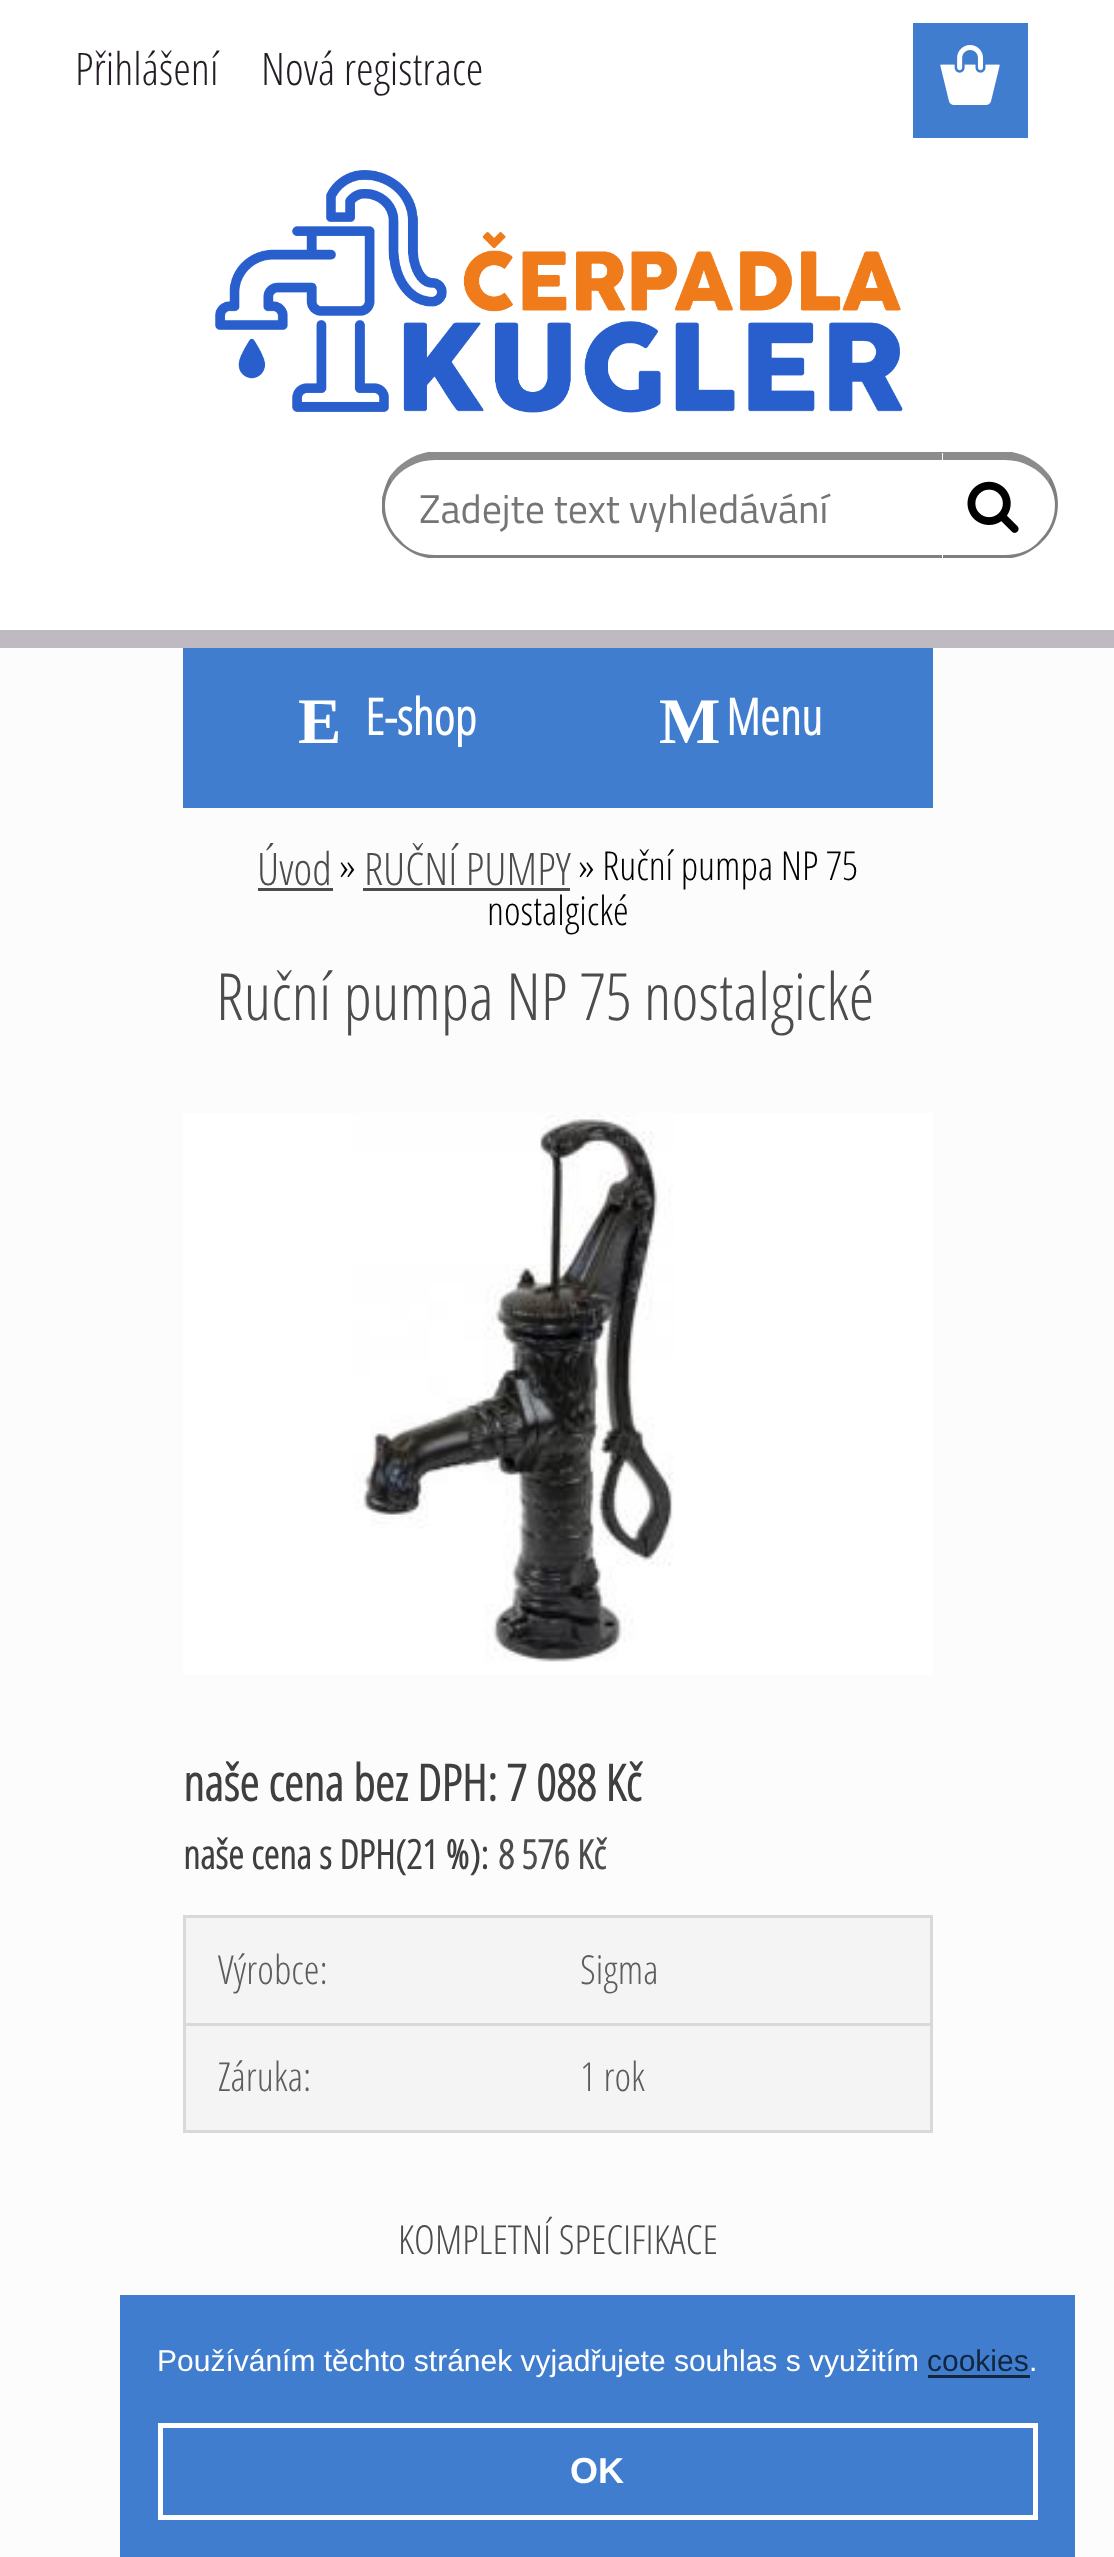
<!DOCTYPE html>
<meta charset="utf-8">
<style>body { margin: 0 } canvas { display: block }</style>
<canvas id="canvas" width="1114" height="2557"></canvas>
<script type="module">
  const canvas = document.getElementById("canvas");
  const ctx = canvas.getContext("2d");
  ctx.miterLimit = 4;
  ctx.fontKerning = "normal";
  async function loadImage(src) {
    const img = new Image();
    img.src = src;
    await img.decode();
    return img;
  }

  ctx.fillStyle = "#ffffff";
  ctx.fillRect(0, 0, 1114, 2557);
  ctx.fillStyle = "#fcfcfc";
  ctx.fillRect(0, 648, 1114, 1909);
  ctx.font = "300 45px Open Sans Condensed";
  ctx.fillStyle = "#231c24";
  ctx.fillText("Přihlášení", 75, 85);
  ctx.fillText("Nová registrace", 261, 85);
  ctx.fillStyle = "#407dcf";
  ctx.fillRect(913, 23, 115, 115);
  ctx.drawImage(await loadImage("img1.png"), 940, 45, 60, 60);
  ctx.fillRect(183, 648, 750, 160);
  ctx.font = "bold 65px Liberation Serif";
  ctx.fillStyle = "#ffffff";
  ctx.fillText("E", 298, 743);
  ctx.font = "bold 50px Open Sans Condensed";
  ctx.fillText("E-shop", 365, 735);
  ctx.font = "bold 65px Liberation Serif";
  ctx.fillText("M", 659, 743);
  ctx.font = "bold 50px Open Sans Condensed";
  ctx.fillText("Menu", 726, 735);
  ctx.font = "300 45px Open Sans Condensed";
  ctx.fillStyle = "#4c4c4c";
  ctx.fillText("Úvod", 257, 885);
  ctx.fillRect(258, 888, 75, 3);
  ctx.font = "300 40px Open Sans Condensed";
  ctx.fillStyle = "#000000";
  ctx.fillText("»", 339, 880);
  ctx.font = "300 45px Open Sans Condensed";
  ctx.fillStyle = "#4c4c4c";
  ctx.fillText("RUČNÍ PUMPY", 364, 885);
  ctx.fillRect(363, 888, 207, 3);
  ctx.font = "300 40px Open Sans Condensed";
  ctx.fillStyle = "#000000";
  ctx.fillText("» Ruční pumpa NP 75", 578, 880);
  ctx.fillText("nostalgické", 487, 925);
  ctx.font = "300 65px Open Sans Condensed";
  ctx.fillStyle = "#4c4c4c";
  ctx.fillText("Ruční pumpa NP 75 nostalgické", 216, 1020);
  ctx.fillStyle = "#ffffff";
  ctx.fillRect(183, 1113, 750, 562);
  ctx.drawImage(await loadImage("img2.png"), 353, 1113, 321, 549);
  ctx.font = "bold 50px Open Sans Condensed";
  ctx.fillStyle = "#3f3f3f";
  ctx.fillText("naše cena bez DPH: 7 088 Kč", 183, 1801);
  ctx.font = "bold 40px Open Sans Condensed";
  ctx.fillText("naše cena s DPH(21 %):", 183, 1869);
  ctx.fillStyle = "#4c4c4c";
  ctx.fillText("8 576 Kč", 498, 1869);
  ctx.fillStyle = "#f4f4f4";
  ctx.fillRect(186, 1918, 744, 105);
  ctx.fillStyle = "#d9d9d9";
  ctx.fillRect(183, 1915, 750, 3);
  ctx.fillRect(183, 2023, 750, 3);
  ctx.fillRect(930, 2023, 3, 110);
  ctx.fillRect(930, 1915, 3, 110);
  ctx.fillRect(183, 2130, 750, 3);
  ctx.fillRect(183, 2023, 3, 110);
  ctx.fillRect(183, 1915, 3, 110);
  ctx.font = "300 40px Open Sans Condensed";
  ctx.fillStyle = "#5d5d5d";
  ctx.fillText("Výrobce:", 218, 1984);
  ctx.fillText("Sigma", 580, 1984);
  ctx.fillStyle = "#f4f4f4";
  ctx.fillRect(186, 2026, 744, 104);
  ctx.fillStyle = "#5d5d5d";
  ctx.fillText("Záruka:", 218, 2091);
  ctx.fillText("1 rok", 580, 2091);
  ctx.fillStyle = "#4c4c4c";
  ctx.fillText("KOMPLETNÍ SPECIFIKACE", 398, 2254);
  ctx.fillStyle = "#bfbac1";
  ctx.fillRect(0, 630, 1114, 18);
  ctx.drawImage(await loadImage("img3.png"), 215, 170, 688, 243);
  ctx.fillStyle = "#8c8c8c";
  ctx.beginPath();
  ctx.moveTo(942, 452);
  ctx.lineTo(1012, 452);
  ctx.bezierCurveTo(1028, 455, 1041, 464, 1050, 476);
  ctx.lineTo(1048, 482);
  ctx.bezierCurveTo(1039, 469, 1023, 460, 1005, 460);
  ctx.lineTo(942, 460);
  ctx.closePath();
  ctx.fill();
  ctx.fillStyle = "rgba(0, 0, 0, 0.5)";
  ctx.beginPath();
  ctx.moveTo(1040, 540);
  ctx.bezierCurveTo(1056, 525, 1060, 500, 1048, 482);
  ctx.lineTo(1050, 476);
  ctx.bezierCurveTo(1063, 497, 1060, 525, 1042, 542);
  ctx.closePath();
  ctx.fill();
  ctx.beginPath();
  ctx.moveTo(942, 555);
  ctx.lineTo(1005, 555);
  ctx.bezierCurveTo(1019, 555, 1032, 550, 1040, 540);
  ctx.lineTo(1042, 542);
  ctx.bezierCurveTo(1034, 550, 1024, 556, 1012, 558);
  ctx.lineTo(942, 558);
  ctx.closePath();
  ctx.fill();
  ctx.fillStyle = "#ffffff";
  ctx.beginPath();
  ctx.roundRect(383, 453, 560, 105, [52.5, 0, 0, 52.5]);
  ctx.fill();
  ctx.fillStyle = "#8c8c8c";
  ctx.beginPath();
  ctx.moveTo(435, 460);
  ctx.bezierCurveTo(417, 460, 401, 469, 392, 482);
  ctx.lineTo(390, 476);
  ctx.bezierCurveTo(399, 464, 412, 455, 428, 452);
  ctx.lineTo(942, 452);
  ctx.lineTo(942, 460);
  ctx.closePath();
  ctx.fill();
  ctx.fillStyle = "#808080";
  ctx.beginPath();
  ctx.moveTo(428, 558);
  ctx.bezierCurveTo(416, 556, 406, 550, 398, 542);
  ctx.lineTo(400, 540);
  ctx.bezierCurveTo(408, 550, 421, 555, 435, 555);
  ctx.lineTo(942, 555);
  ctx.lineTo(942, 558);
  ctx.closePath();
  ctx.fill();
  ctx.fillStyle = "rgba(0, 0, 0, 0.5)";
  ctx.beginPath();
  ctx.moveTo(382, 498);
  ctx.bezierCurveTo(384, 490, 386, 483, 390, 476);
  ctx.lineTo(392, 482);
  ctx.bezierCurveTo(380, 500, 384, 525, 400, 540);
  ctx.lineTo(398, 542);
  ctx.bezierCurveTo(390, 534, 384, 524, 382, 512);
  ctx.closePath();
  ctx.fill();
  ctx.font = "40px Titillium Web";
  ctx.fillStyle = "#757575";
  ctx.fillText("Zadejte text vyhledávání", 419, 523);
  ctx.drawImage(await loadImage("img4.png"), 967, 481, 52, 52);
  ctx.fillStyle = "#407dcf";
  ctx.fillRect(120, 2295, 955, 262);
  ctx.font = "30px Liberation Sans";
  ctx.fillStyle = "#ffffff";
  ctx.fillText("Používáním těchto stránek vyjadřujete souhlas s využitím", 157, 2371);
  ctx.fillStyle = "#13263e";
  ctx.fillText("cookies", 927, 2371);
  ctx.fillRect(928, 2375, 102, 3);
  ctx.fillStyle = "#ffffff";
  ctx.fillText(".", 1029, 2371);
  ctx.strokeStyle = "#ffffff";
  ctx.lineWidth = 5;
  ctx.strokeRect(160.5, 2425.5, 875, 92);
  ctx.font = "bold 36px Liberation Sans";
  ctx.fillText("OK", 570, 2483);
</script>
